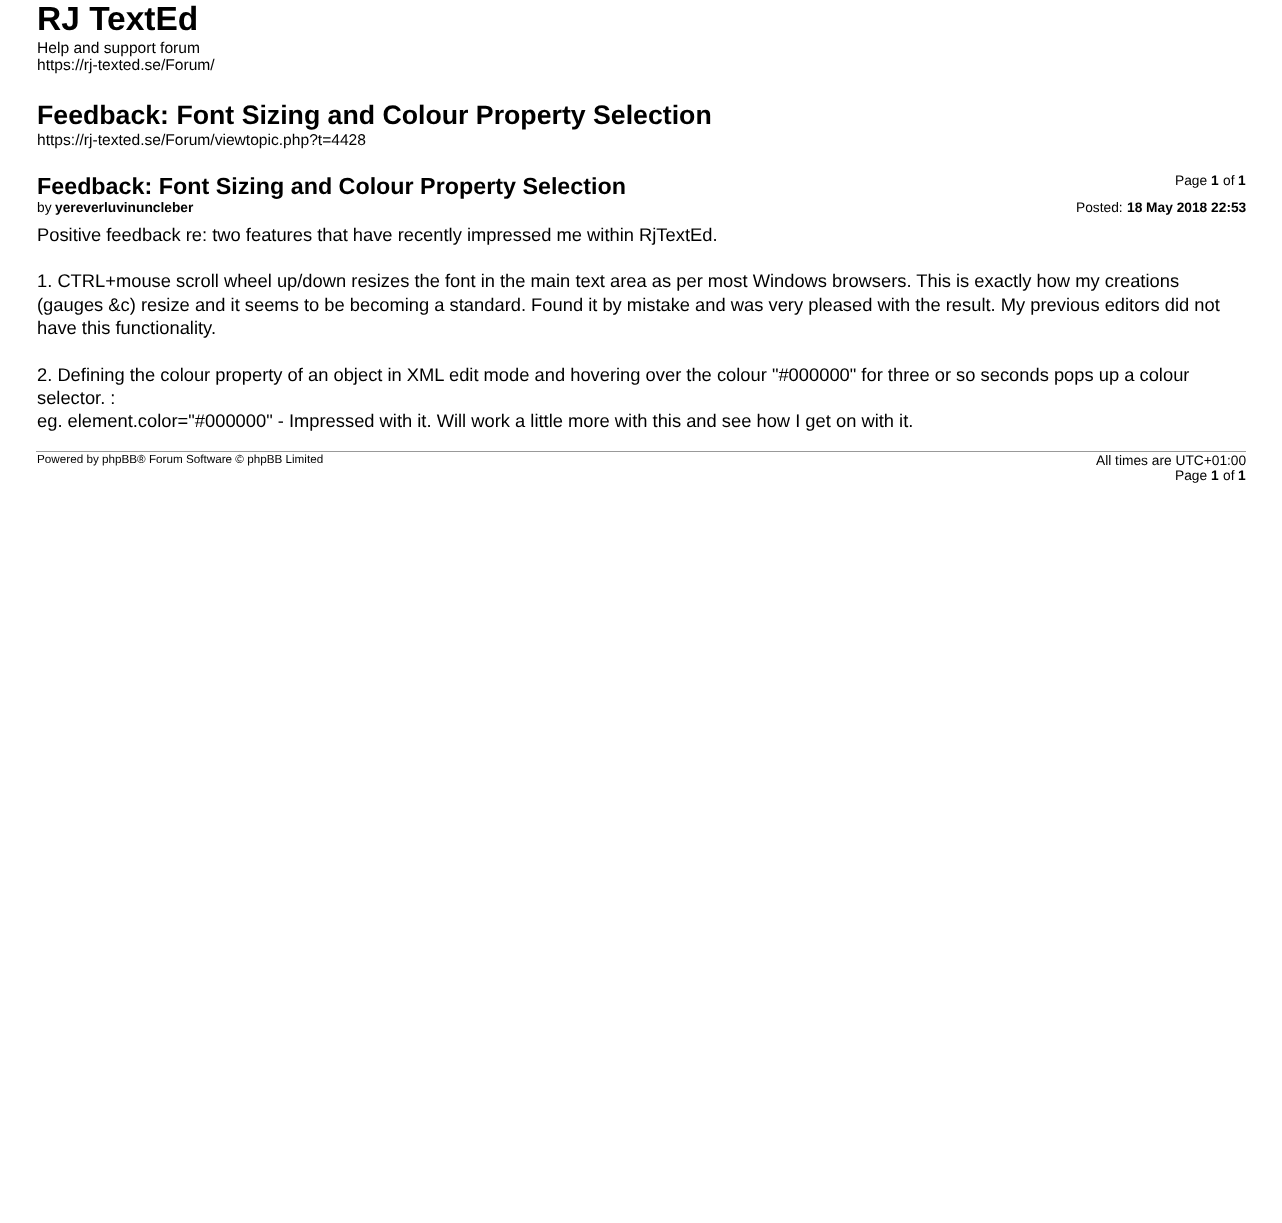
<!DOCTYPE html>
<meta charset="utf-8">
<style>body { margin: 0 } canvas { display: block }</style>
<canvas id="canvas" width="1282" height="1223"></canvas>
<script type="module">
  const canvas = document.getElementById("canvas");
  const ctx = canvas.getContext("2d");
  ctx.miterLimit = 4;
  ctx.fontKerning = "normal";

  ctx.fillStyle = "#ffffff";
  ctx.fillRect(0, 0, 1282, 1223);
  ctx.font = "bold 33.5px Liberation Sans";
  ctx.fillStyle = "#000000";
  ctx.fillText("RJ TextEd", 37, 30);
  ctx.font = "15.6px Liberation Sans";
  ctx.fillText("Help and support forum", 37, 53);
  ctx.fillText("https://rj-texted.se/Forum/", 37, 70);
  ctx.font = "bold 26.7px Liberation Sans";
  ctx.fillText("Feedback: Font Sizing and Colour Property Selection", 37, 124);
  ctx.font = "15.6px Liberation Sans";
  ctx.fillText("https://rj-texted.se/Forum/viewtopic.php?t=4428", 37, 145);
  ctx.font = "13.75px Liberation Sans";
  ctx.fillText("Page", 1175, 185);
  ctx.font = "bold 13.75px Liberation Sans";
  ctx.fillText("1", 1211, 185);
  ctx.font = "13.75px Liberation Sans";
  ctx.fillText("of", 1223, 185);
  ctx.font = "bold 13.75px Liberation Sans";
  ctx.fillText("1", 1238, 185);
  ctx.font = "bold 23.3px Liberation Sans";
  ctx.fillText("Feedback: Font Sizing and Colour Property Selection", 37, 194);
  ctx.font = "13.75px Liberation Sans";
  ctx.fillText("by", 37, 212);
  ctx.font = "bold 13.75px Liberation Sans";
  ctx.fillText("yereverluvinuncleber", 55, 212);
  ctx.font = "13.75px Liberation Sans";
  ctx.fillText("Posted:", 1076, 212);
  ctx.font = "bold 13.75px Liberation Sans";
  ctx.fillText("18 May 2018 22:53", 1127, 212);
  ctx.font = "18.33px Liberation Sans";
  ctx.fillText("Positive feedback re: two features that have recently impressed me within RjTextEd.", 37, 241);
  ctx.fillText("1. CTRL+mouse scroll wheel up/down resizes the font in the main text area as per most Windows browsers. This is exactly how my creations", 37, 287);
  ctx.fillText("(gauges &c) resize and it seems to be becoming a standard. Found it by mistake and was very pleased with the result. My previous editors did not", 37, 311);
  ctx.fillText("have this functionality.", 37, 334);
  ctx.fillText("2. Defining the colour property of an object in XML edit mode and hovering over the colour \"#000000\" for three or so seconds pops up a colour", 37, 381);
  ctx.fillText("selector. :", 37, 404);
  ctx.fillText("eg. element.color=\"#000000\" - Impressed with it. Will work a little more with this and see how I get on with it.", 37, 427);
  ctx.fillStyle = "#999999";
  ctx.fillRect(36, 451, 1210, 1);
  ctx.font = "11.7px Liberation Sans";
  ctx.fillStyle = "#000000";
  ctx.fillText("Powered by phpBB® Forum Software © phpBB Limited", 37, 463);
  ctx.font = "13.75px Liberation Sans";
  ctx.fillText("All times are UTC+01:00", 1096, 465);
  ctx.fillText("Page", 1175, 480);
  ctx.font = "bold 13.75px Liberation Sans";
  ctx.fillText("1", 1211, 480);
  ctx.font = "13.75px Liberation Sans";
  ctx.fillText("of", 1223, 480);
  ctx.font = "bold 13.75px Liberation Sans";
  ctx.fillText("1", 1238, 480);
</script>
